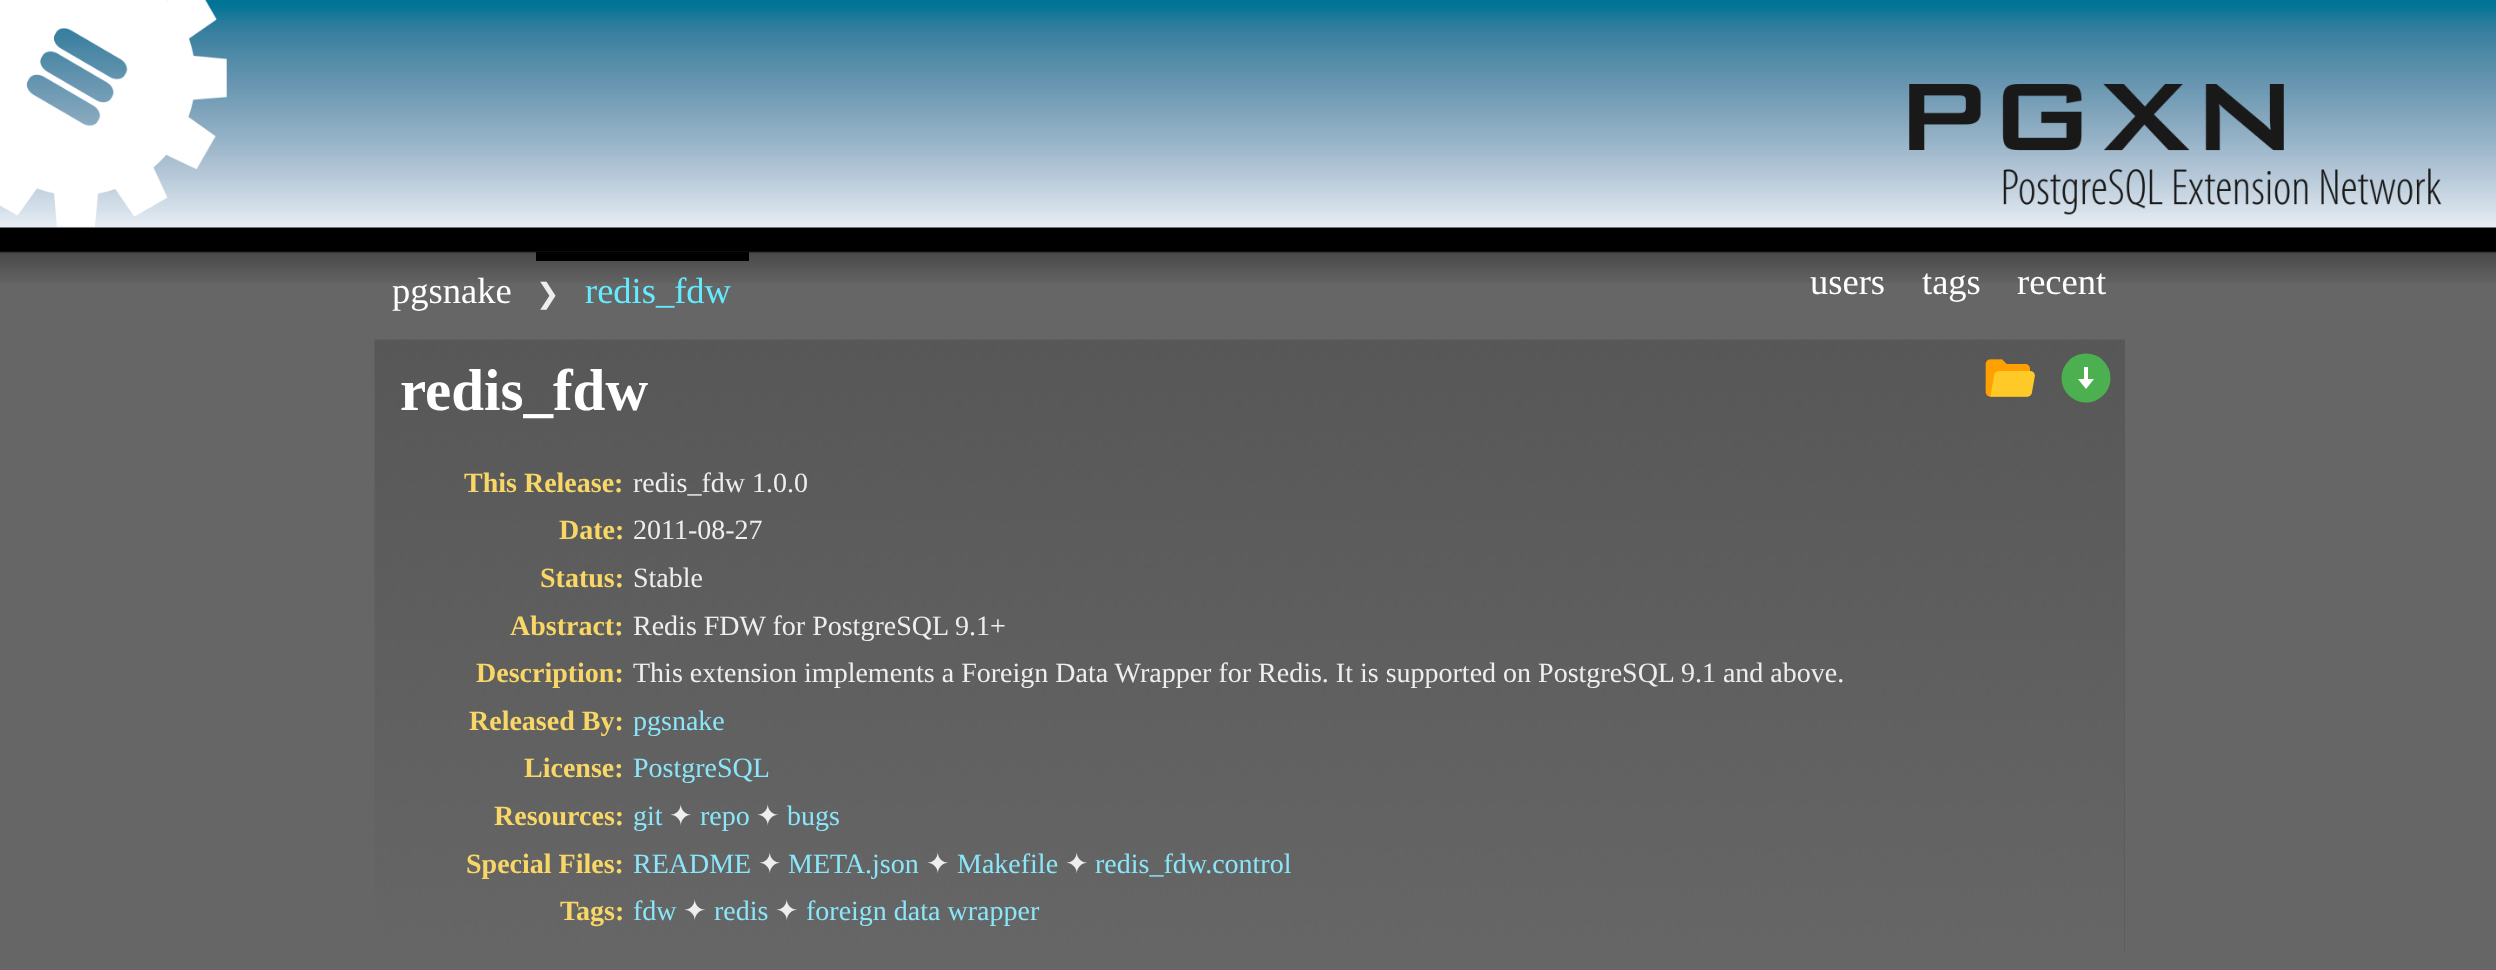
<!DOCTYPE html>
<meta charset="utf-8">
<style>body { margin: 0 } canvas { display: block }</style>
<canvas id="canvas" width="2496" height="970"></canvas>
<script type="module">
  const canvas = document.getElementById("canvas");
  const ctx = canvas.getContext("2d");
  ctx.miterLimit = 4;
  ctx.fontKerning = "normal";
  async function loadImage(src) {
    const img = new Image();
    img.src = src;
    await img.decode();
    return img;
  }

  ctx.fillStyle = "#666666";
  ctx.fillRect(0, 0, 2496, 970);
  ctx.drawImage(await loadImage("img1.png"), 0, 0, 2496, 283);
  ctx.drawImage(await loadImage("img2.png"), 0, 0, 227, 227);
  ctx.drawImage(await loadImage("img3.png"), 1909, 84, 533, 131);
  ctx.font = "36.5px Liberation Serif";
  ctx.fillStyle = "#ffffff";
  ctx.fillText("pgsnake", 392, 303);
  ctx.fillStyle = "#000000";
  ctx.fillRect(536, 252, 213, 9);
  ctx.font = "28px DejaVu Sans";
  ctx.fillStyle = "#eeeeee";
  ctx.fillText("❯", 536, 303);
  ctx.font = "36.5px Liberation Serif";
  ctx.fillStyle = "#65ebff";
  ctx.fillText("redis_fdw", 585, 303);
  ctx.fillStyle = "#ffffff";
  ctx.fillText("users", 1810, 294);
  ctx.fillText("tags", 1922, 294);
  ctx.fillText("recent", 2017, 294);
  ctx.fillStyle = "#555555";
  ctx.fillRect(2124, 340, 1, 612);
  ctx.drawImage(await loadImage("img4.png"), 374, 339, 1751, 613);
  ctx.font = "bold 59px Liberation Serif";
  ctx.fillStyle = "#ffffff";
  ctx.fillText("redis_fdw", 400, 410);
  ctx.drawImage(await loadImage("img5.png"), 1985, 359, 50, 38);
  ctx.fillStyle = "#4caf50";
  ctx.beginPath();
  ctx.arc(2086, 378, 24.5, 0, Math.PI * 2);
  ctx.fill();
  ctx.fillStyle = "#ffffff";
  ctx.beginPath();
  ctx.moveTo(2086, 389);
  ctx.lineTo(2078, 379);
  ctx.lineTo(2094, 379);
  ctx.closePath();
  ctx.fill();
  ctx.fillRect(2084, 367, 4, 15);
  ctx.font = "bold 28px Liberation Serif";
  ctx.fillStyle = "#f8d766";
  ctx.fillText("This Release:", 464, 492);
  ctx.font = "28px Liberation Serif";
  ctx.fillStyle = "#eeeeee";
  ctx.fillText("redis_fdw 1.0.0", 633, 492);
  ctx.font = "bold 28px Liberation Serif";
  ctx.fillStyle = "#f8d766";
  ctx.fillText("Date:", 559, 539);
  ctx.font = "28px Liberation Serif";
  ctx.fillStyle = "#eeeeee";
  ctx.fillText("2011-08-27", 633, 539);
  ctx.font = "bold 28px Liberation Serif";
  ctx.fillStyle = "#f8d766";
  ctx.fillText("Status:", 540, 587);
  ctx.font = "28px Liberation Serif";
  ctx.fillStyle = "#eeeeee";
  ctx.fillText("Stable", 633, 587);
  ctx.font = "bold 28px Liberation Serif";
  ctx.fillStyle = "#f8d766";
  ctx.fillText("Abstract:", 510, 635);
  ctx.font = "28px Liberation Serif";
  ctx.fillStyle = "#eeeeee";
  ctx.fillText("Redis FDW for PostgreSQL 9.1+", 633, 635);
  ctx.font = "bold 28px Liberation Serif";
  ctx.fillStyle = "#f8d766";
  ctx.fillText("Description:", 476, 682);
  ctx.font = "28px Liberation Serif";
  ctx.fillStyle = "#eeeeee";
  ctx.fillText("This extension implements a Foreign Data Wrapper for Redis. It is supported on PostgreSQL 9.1 and above.", 633, 682);
  ctx.font = "bold 28px Liberation Serif";
  ctx.fillStyle = "#f8d766";
  ctx.fillText("Released By:", 469, 730);
  ctx.font = "28px Liberation Serif";
  ctx.fillStyle = "#8be6fa";
  ctx.fillText("pgsnake", 633, 730);
  ctx.font = "bold 28px Liberation Serif";
  ctx.fillStyle = "#f8d766";
  ctx.fillText("License:", 524, 777);
  ctx.font = "28px Liberation Serif";
  ctx.fillStyle = "#8be6fa";
  ctx.fillText("PostgreSQL", 633, 777);
  ctx.font = "bold 28px Liberation Serif";
  ctx.fillStyle = "#f8d766";
  ctx.fillText("Resources:", 494, 825);
  ctx.font = "28px Liberation Serif";
  ctx.fillStyle = "#8be6fa";
  ctx.fillText("git", 633, 825);
  ctx.font = "28px DejaVu Sans";
  ctx.fillStyle = "#eeeeee";
  ctx.fillText("✦", 669, 825);
  ctx.font = "28px Liberation Serif";
  ctx.fillStyle = "#8be6fa";
  ctx.fillText("repo", 700, 825);
  ctx.font = "28px DejaVu Sans";
  ctx.fillStyle = "#eeeeee";
  ctx.fillText("✦", 756, 825);
  ctx.font = "28px Liberation Serif";
  ctx.fillStyle = "#8be6fa";
  ctx.fillText("bugs", 787, 825);
  ctx.font = "bold 28px Liberation Serif";
  ctx.fillStyle = "#f8d766";
  ctx.fillText("Special Files:", 466, 873);
  ctx.font = "28px Liberation Serif";
  ctx.fillStyle = "#8be6fa";
  ctx.fillText("README", 633, 873);
  ctx.font = "28px DejaVu Sans";
  ctx.fillStyle = "#eeeeee";
  ctx.fillText("✦", 758, 873);
  ctx.font = "28px Liberation Serif";
  ctx.fillStyle = "#8be6fa";
  ctx.fillText("META.json", 788, 873);
  ctx.font = "28px DejaVu Sans";
  ctx.fillStyle = "#eeeeee";
  ctx.fillText("✦", 926, 873);
  ctx.font = "28px Liberation Serif";
  ctx.fillStyle = "#8be6fa";
  ctx.fillText("Makefile", 957, 873);
  ctx.font = "28px DejaVu Sans";
  ctx.fillStyle = "#eeeeee";
  ctx.fillText("✦", 1065, 873);
  ctx.font = "28px Liberation Serif";
  ctx.fillStyle = "#8be6fa";
  ctx.fillText("redis_fdw.control", 1095, 873);
  ctx.font = "bold 28px Liberation Serif";
  ctx.fillStyle = "#f8d766";
  ctx.fillText("Tags:", 560, 920);
  ctx.font = "28px Liberation Serif";
  ctx.fillStyle = "#8be6fa";
  ctx.fillText("fdw", 633, 920);
  ctx.font = "28px DejaVu Sans";
  ctx.fillStyle = "#eeeeee";
  ctx.fillText("✦", 683, 920);
  ctx.font = "28px Liberation Serif";
  ctx.fillStyle = "#8be6fa";
  ctx.fillText("redis", 714, 920);
  ctx.font = "28px DejaVu Sans";
  ctx.fillStyle = "#eeeeee";
  ctx.fillText("✦", 775, 920);
  ctx.font = "28px Liberation Serif";
  ctx.fillStyle = "#8be6fa";
  ctx.fillText("foreign data wrapper", 806, 920);
</script>
